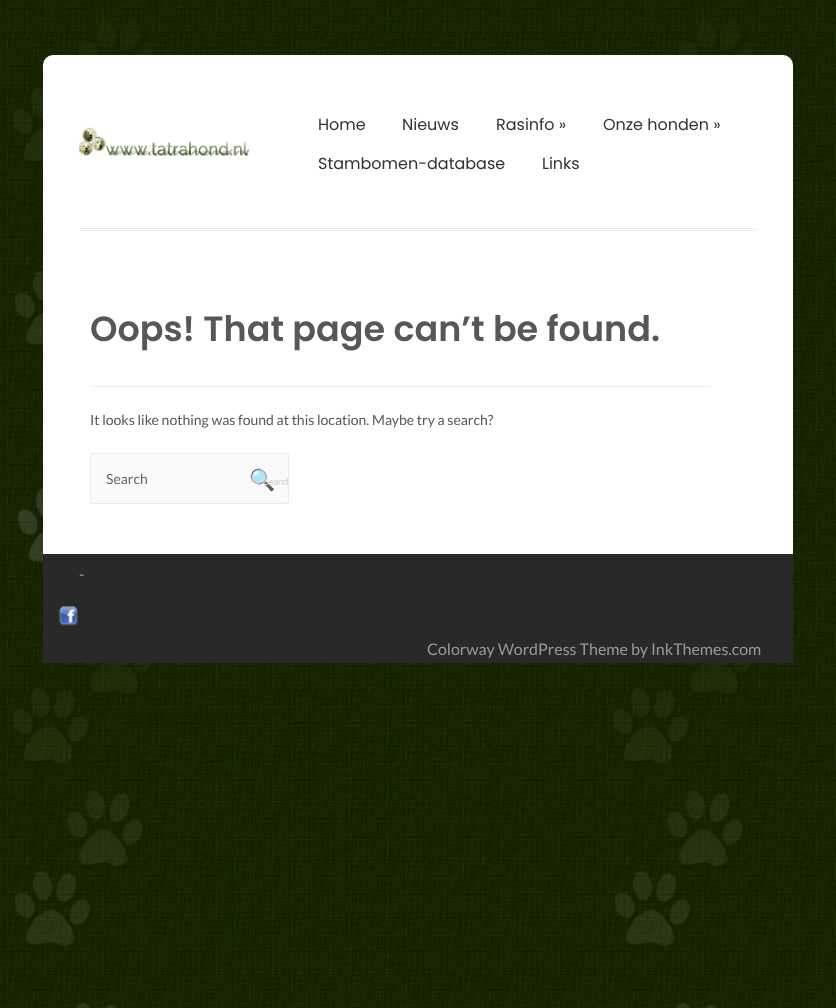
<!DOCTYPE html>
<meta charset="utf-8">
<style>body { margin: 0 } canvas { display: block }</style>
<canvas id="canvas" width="836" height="1008"></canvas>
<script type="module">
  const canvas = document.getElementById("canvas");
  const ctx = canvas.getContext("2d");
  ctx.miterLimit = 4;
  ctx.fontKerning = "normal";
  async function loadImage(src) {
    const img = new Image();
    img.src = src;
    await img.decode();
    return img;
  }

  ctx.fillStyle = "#ffffff";
  ctx.fillRect(0, 0, 836, 1008);
  ctx.drawImage(await loadImage("img1.png"), 0, 0, 836, 1008);
  ctx.beginPath();
  ctx.roundRect(43, 55, 750, 176, [10, 10, 0, 0]);
  ctx.fill();
  ctx.drawImage(await loadImage("img2.png"), 78, 127, 171, 29);
  ctx.font = "16px Poppins";
  ctx.fillStyle = "#333333";
  ctx.fillText("Home", 318, 130);
  ctx.fillText("Nieuws", 402, 130);
  ctx.fillText("Rasinfo »", 496, 130);
  ctx.fillText("Onze honden »", 603, 130);
  ctx.fillText("Stambomen-database", 318, 169);
  ctx.fillText("Links", 542, 169);
  ctx.fillStyle = "#eeeeee";
  ctx.fillRect(80, 228, 676, 1);
  ctx.fillRect(80, 230, 676, 1);
  ctx.fillStyle = "#ffffff";
  ctx.fillRect(43, 231, 750, 323);
  ctx.fillStyle = "#eeeeee";
  ctx.fillRect(90, 386, 621, 1);
  ctx.font = "600 35px Poppins";
  ctx.fillStyle = "#585656";
  ctx.fillText("Oops! That page can’t be found.", 90, 341);
  ctx.font = "14px Lato";
  ctx.fillText("It looks like nothing was found at this location. Maybe try a search?", 90, 425);
  ctx.fillStyle = "#fafafa";
  ctx.beginPath();
  ctx.roundRect(90.5, 453.5, 198, 50, 1.5);
  ctx.fill();
  ctx.strokeStyle = "#eaeaea";
  ctx.stroke();
  ctx.fillStyle = "#666666";
  ctx.fillText("Search", 106, 484);
  ctx.font = "21px Noto Color Emoji";
  ctx.fillStyle = "#999898";
  ctx.fillText("🔍", 249, 487);
  ctx.save();
  ctx.beginPath();
  ctx.roundRect(244, 453, 45, 50, 2);
  ctx.clip();
  ctx.font = "bold 9px Lato";
  ctx.fillStyle = "#d2d2d2";
  ctx.fillText("Search", 264, 485);
  ctx.restore();
  ctx.fillStyle = "#292929";
  ctx.fillRect(43, 554, 750, 109);
  ctx.font = "16px Lato";
  ctx.fillStyle = "#999898";
  ctx.fillText("-", 79, 580);
  ctx.drawImage(await loadImage("img3.png"), 58, 606, 20, 20);
  ctx.fillText("Colorway WordPress Theme by InkThemes.com", 427, 655);
</script>
